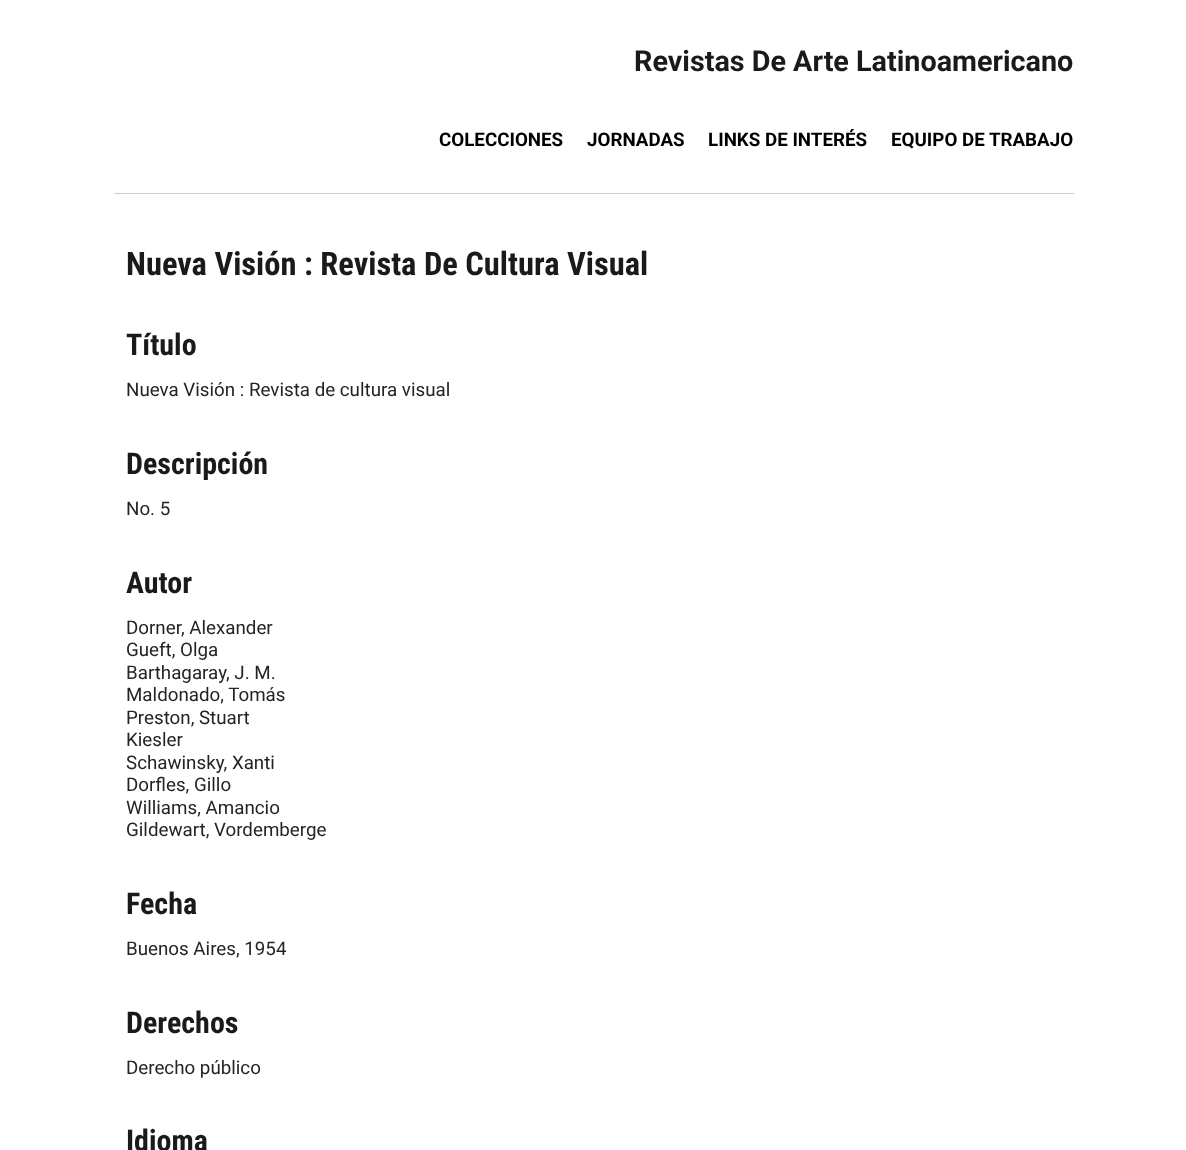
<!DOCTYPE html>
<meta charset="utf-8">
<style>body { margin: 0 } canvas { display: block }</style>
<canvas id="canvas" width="1186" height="1150"></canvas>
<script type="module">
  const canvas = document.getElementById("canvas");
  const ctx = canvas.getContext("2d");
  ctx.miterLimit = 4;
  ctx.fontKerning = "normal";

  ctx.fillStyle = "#ffffff";
  ctx.fillRect(0, 0, 1186, 1150);
  ctx.fillStyle = "#cccccc";
  ctx.fillRect(114, 193, 960, 1);
  ctx.font = "bold 28.75px Roboto";
  ctx.fillStyle = "#1b1a1a";
  ctx.fillText("Revistas De Arte Latinoamericano", 634, 71);
  ctx.font = "bold 18.75px Roboto";
  ctx.fillStyle = "#000000";
  ctx.fillText("COLECCIONES", 439, 146);
  ctx.fillText("JORNADAS", 587, 146);
  ctx.fillText("LINKS DE INTERÉS", 708, 146);
  ctx.fillText("EQUIPO DE TRABAJO", 891, 146);
  ctx.font = "bold 32.5px Roboto Condensed";
  ctx.fillStyle = "#1b1a1a";
  ctx.fillText("Nueva Visión : Revista De Cultura Visual", 126, 275);
  ctx.font = "bold 30px Roboto Condensed";
  ctx.fillText("Título", 126, 355);
  ctx.font = "18.75px Roboto";
  ctx.fillStyle = "#212529";
  ctx.fillText("Nueva Visión : Revista de cultura visual", 126, 396);
  ctx.font = "bold 30px Roboto Condensed";
  ctx.fillStyle = "#1b1a1a";
  ctx.fillText("Descripción", 126, 474);
  ctx.font = "18.75px Roboto";
  ctx.fillStyle = "#212529";
  ctx.fillText("No. 5", 126, 515);
  ctx.font = "bold 30px Roboto Condensed";
  ctx.fillStyle = "#1b1a1a";
  ctx.fillText("Autor", 126, 593);
  ctx.font = "18.75px Roboto";
  ctx.fillStyle = "#212529";
  ctx.fillText("Dorner, Alexander", 126, 634);
  ctx.fillText("Gueft, Olga", 126, 656);
  ctx.fillText("Barthagaray, J. M.", 126, 679);
  ctx.fillText("Maldonado, Tomás", 126, 701);
  ctx.fillText("Preston, Stuart", 126, 724);
  ctx.fillText("Kiesler", 126, 746);
  ctx.fillText("Schawinsky, Xanti", 126, 769);
  ctx.fillText("Dorfles, Gillo", 126, 791);
  ctx.fillText("Williams, Amancio", 126, 814);
  ctx.fillText("Gildewart, Vordemberge", 126, 836);
  ctx.font = "bold 30px Roboto Condensed";
  ctx.fillStyle = "#1b1a1a";
  ctx.fillText("Fecha", 126, 914);
  ctx.font = "18.75px Roboto";
  ctx.fillStyle = "#212529";
  ctx.fillText("Buenos Aires, 1954", 126, 955);
  ctx.font = "bold 30px Roboto Condensed";
  ctx.fillStyle = "#1b1a1a";
  ctx.fillText("Derechos", 126, 1033);
  ctx.font = "18.75px Roboto";
  ctx.fillStyle = "#212529";
  ctx.fillText("Derecho público", 126, 1074);
  ctx.font = "bold 30px Roboto Condensed";
  ctx.fillStyle = "#1b1a1a";
  ctx.fillText("Idioma", 126, 1151);
</script>
